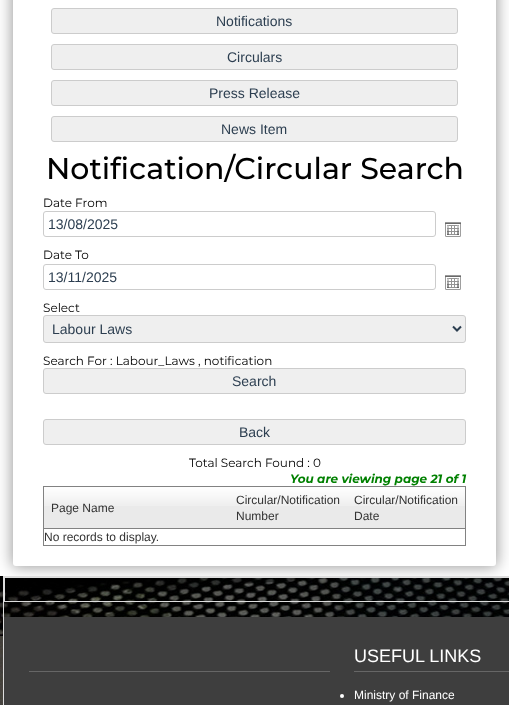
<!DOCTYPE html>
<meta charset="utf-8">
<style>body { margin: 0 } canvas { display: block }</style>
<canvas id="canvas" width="509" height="705"></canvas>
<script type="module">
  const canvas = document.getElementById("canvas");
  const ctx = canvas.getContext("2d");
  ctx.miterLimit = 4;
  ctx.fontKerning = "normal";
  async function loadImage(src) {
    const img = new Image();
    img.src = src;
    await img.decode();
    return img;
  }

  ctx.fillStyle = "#ffffff";
  ctx.fillRect(0, 0, 509, 705);
  ctx.drawImage(await loadImage("img1.png"), 0, 576, 509, 129);
  ctx.fillStyle = "#dddddd";
  ctx.fillRect(3, 576, 506, 1);
  ctx.fillRect(3, 576, 1, 129);
  ctx.fillRect(4, 577, 505, 1);
  ctx.fillRect(4, 601, 505, 1);
  ctx.fillRect(4, 577, 1, 25);
  ctx.save();
  ctx.beginPath();
  ctx.rect(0, 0, 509, 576);
  ctx.clip();
  ctx.fillStyle = "rgba(0, 0, 0, 0.4)";
  ctx.filter = "blur(7.5px)";
  ctx.beginPath();
  ctx.roundRect(12, -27, 485, 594, 4);
  ctx.fill();
  ctx.filter = "none";
  ctx.restore();
  ctx.fillStyle = "#ffffff";
  ctx.beginPath();
  ctx.roundRect(13, -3, 483, 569, 3);
  ctx.fill();
  ctx.fillStyle = "#efefef";
  ctx.beginPath();
  ctx.roundRect(51.5, 8.5, 406, 25, 2.5);
  ctx.fill();
  ctx.strokeStyle = "#cccccc";
  ctx.stroke();
  ctx.font = "14px Liberation Sans";
  ctx.fillStyle = "#2c3e50";
  ctx.fillText("Notifications", 216, 26);
  ctx.fillStyle = "#efefef";
  ctx.beginPath();
  ctx.roundRect(51.5, 44.5, 406, 25, 2.5);
  ctx.fill();
  ctx.stroke();
  ctx.fillStyle = "#2c3e50";
  ctx.fillText("Circulars", 227, 62);
  ctx.fillStyle = "#efefef";
  ctx.beginPath();
  ctx.roundRect(51.5, 80.5, 406, 25, 2.5);
  ctx.fill();
  ctx.stroke();
  ctx.fillStyle = "#2c3e50";
  ctx.fillText("Press Release", 209, 98);
  ctx.fillStyle = "#efefef";
  ctx.beginPath();
  ctx.roundRect(51.5, 116.5, 406, 25, 2.5);
  ctx.fill();
  ctx.stroke();
  ctx.fillStyle = "#2c3e50";
  ctx.fillText("News Item", 221, 134);
  ctx.font = "500 30px Montserrat";
  ctx.fillStyle = "#000000";
  ctx.fillText("Notification/Circular Search", 46, 179);
  ctx.font = "12px Montserrat";
  ctx.fillText("Date From", 43, 207);
  ctx.beginPath();
  ctx.roundRect(43.5, 211.5, 392, 25, 2.5);
  ctx.stroke();
  ctx.font = "14px Liberation Sans";
  ctx.fillStyle = "#2c3e50";
  ctx.fillText("13/08/2025", 48, 229);
  ctx.drawImage(await loadImage("img2.png"), 445, 222, 16, 15);
  ctx.font = "12px Montserrat";
  ctx.fillStyle = "#000000";
  ctx.fillText("Date To", 43, 259);
  ctx.beginPath();
  ctx.roundRect(43.5, 264.5, 392, 25, 2.5);
  ctx.stroke();
  ctx.font = "14px Liberation Sans";
  ctx.fillStyle = "#2c3e50";
  ctx.fillText("13/11/2025", 48, 282);
  ctx.drawImage(await loadImage("img2.png"), 445, 275, 16, 15);
  ctx.font = "12px Montserrat";
  ctx.fillStyle = "#000000";
  ctx.fillText("Select", 43, 312);
  ctx.fillStyle = "#efefef";
  ctx.beginPath();
  ctx.roundRect(43.5, 315.5, 422, 27, 2.5);
  ctx.fill();
  ctx.stroke();
  ctx.beginPath();
  ctx.moveTo(453, 326.5);
  ctx.lineTo(457, 330.5);
  ctx.lineTo(461, 326.5);
  ctx.strokeStyle = "#2c3e50";
  ctx.lineWidth = 2;
  ctx.stroke();
  ctx.font = "14px Liberation Sans";
  ctx.fillStyle = "#2c3e50";
  ctx.fillText("Labour Laws", 52, 334);
  ctx.font = "12px Montserrat";
  ctx.fillStyle = "#000000";
  ctx.fillText("Search For : Labour_Laws , notification", 43, 365);
  ctx.fillStyle = "#efefef";
  ctx.beginPath();
  ctx.roundRect(43.5, 368.5, 422, 25, 2.5);
  ctx.fill();
  ctx.strokeStyle = "#cccccc";
  ctx.lineWidth = 1;
  ctx.stroke();
  ctx.font = "14px Liberation Sans";
  ctx.fillStyle = "#2c3e50";
  ctx.fillText("Search", 232, 386);
  ctx.fillStyle = "#efefef";
  ctx.beginPath();
  ctx.roundRect(43.5, 419.5, 422, 25, 2.5);
  ctx.fill();
  ctx.stroke();
  ctx.fillStyle = "#2c3e50";
  ctx.fillText("Back", 239, 437);
  ctx.font = "12px Montserrat";
  ctx.fillStyle = "#000000";
  ctx.fillText("Total Search Found : 0", 189, 467);
  ctx.font = "italic bold 12px Montserrat";
  ctx.fillStyle = "#008000";
  ctx.fillText("You are viewing page 21 of 1", 290, 483);
  ctx.strokeStyle = "#828282";
  ctx.strokeRect(43.5, 486.5, 422, 59);
  ctx.fillStyle = "#eaeaea";
  ctx.fillRect(44, 506, 421, 22);
  ctx.drawImage(await loadImage("img3.png"), 44, 487, 185, 19);
  ctx.fillStyle = "#828282";
  ctx.fillRect(44, 528, 421, 1);
  ctx.font = "12px Liberation Sans";
  ctx.fillStyle = "#333333";
  ctx.fillText("Page Name", 51, 512);
  ctx.drawImage(await loadImage("img4.png"), 229, 487, 118, 19);
  ctx.fillText("Circular/Notification", 236, 504);
  ctx.fillText("Number", 236, 520);
  ctx.drawImage(await loadImage("img4.png"), 347, 487, 118, 19);
  ctx.fillText("Circular/Notification", 354, 504);
  ctx.fillText("Date", 354, 520);
  ctx.fillText("No records to display.", 44, 541);
  ctx.fillStyle = "#3e3e3e";
  ctx.fillRect(4, 617, 505, 88);
  ctx.fillStyle = "#666666";
  ctx.fillRect(354, 671, 155, 1);
  ctx.font = "18px Liberation Sans";
  ctx.fillStyle = "#ffffff";
  ctx.fillText("USEFUL LINKS", 354, 662);
  ctx.fillStyle = "#666666";
  ctx.fillRect(29, 671, 301, 1);
  ctx.fillStyle = "#ffffff";
  ctx.beginPath();
  ctx.arc(342, 696, 2, 0, Math.PI * 2);
  ctx.fill();
  ctx.font = "12px Liberation Sans";
  ctx.fillText("Ministry of Finance", 354, 699);
</script>
